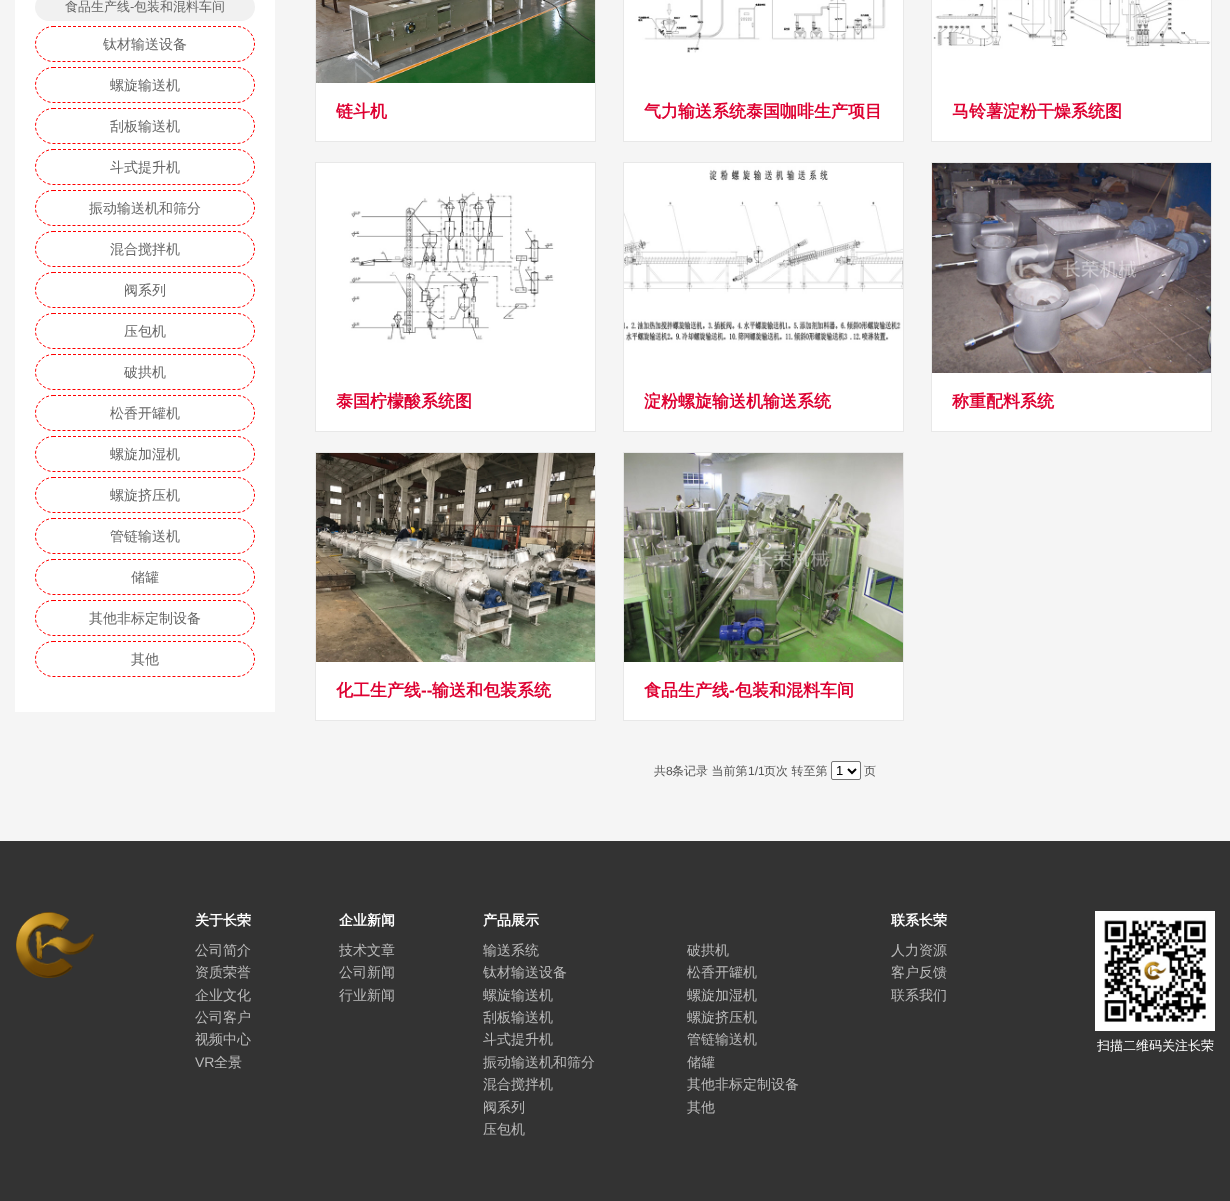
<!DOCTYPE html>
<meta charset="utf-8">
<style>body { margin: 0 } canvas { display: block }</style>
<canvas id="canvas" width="1230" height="1201"></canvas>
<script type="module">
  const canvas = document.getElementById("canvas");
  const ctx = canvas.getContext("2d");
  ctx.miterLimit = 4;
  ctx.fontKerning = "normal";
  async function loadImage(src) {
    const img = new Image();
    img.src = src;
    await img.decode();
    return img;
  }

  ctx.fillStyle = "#f5f5f5";
  ctx.fillRect(0, 0, 1230, 1201);
  ctx.fillStyle = "#ffffff";
  ctx.fillRect(15, 0, 260, 712);
  ctx.fillStyle = "#f1f1f1";
  ctx.beginPath();
  ctx.roundRect(35, -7, 220, 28, 14);
  ctx.fill();
  ctx.font = "500 13px WenQuanYi Zen Hei";
  ctx.fillStyle = "#666666";
  ctx.fillText("食品生产线", 65, 11);
  ctx.font = "13px Liberation Sans";
  ctx.fillText("-", 130, 11);
  ctx.font = "500 13px WenQuanYi Zen Hei";
  ctx.fillText("包装和混料车间", 134, 11);
  ctx.beginPath();
  ctx.moveTo(53, 26.5);
  ctx.lineTo(237, 26.5);
  ctx.bezierCurveTo(246.5, 26.5, 254.5, 34.5, 254.5, 44);
  ctx.bezierCurveTo(254.5, 53.5, 246.5, 61.5, 237, 61.5);
  ctx.lineTo(53, 61.5);
  ctx.bezierCurveTo(43.5, 61.5, 35.5, 53.5, 35.5, 44);
  ctx.bezierCurveTo(35.5, 34.5, 43.5, 26.5, 53, 26.5);
  ctx.closePath();
  ctx.strokeStyle = "#ff0000";
  ctx.setLineDash([3, 2]);
  ctx.stroke();
  ctx.font = "500 14px WenQuanYi Zen Hei";
  ctx.fillText("钛材输送设备", 103, 49);
  ctx.beginPath();
  ctx.moveTo(53, 67.5);
  ctx.lineTo(237, 67.5);
  ctx.bezierCurveTo(246.5, 67.5, 254.5, 75.5, 254.5, 85);
  ctx.bezierCurveTo(254.5, 94.5, 246.5, 102.5, 237, 102.5);
  ctx.lineTo(53, 102.5);
  ctx.bezierCurveTo(43.5, 102.5, 35.5, 94.5, 35.5, 85);
  ctx.bezierCurveTo(35.5, 75.5, 43.5, 67.5, 53, 67.5);
  ctx.closePath();
  ctx.stroke();
  ctx.fillText("螺旋输送机", 110, 90);
  ctx.beginPath();
  ctx.moveTo(53, 108.5);
  ctx.lineTo(237, 108.5);
  ctx.bezierCurveTo(246.5, 108.5, 254.5, 116.5, 254.5, 126);
  ctx.bezierCurveTo(254.5, 135.5, 246.5, 143.5, 237, 143.5);
  ctx.lineTo(53, 143.5);
  ctx.bezierCurveTo(43.5, 143.5, 35.5, 135.5, 35.5, 126);
  ctx.bezierCurveTo(35.5, 116.5, 43.5, 108.5, 53, 108.5);
  ctx.closePath();
  ctx.stroke();
  ctx.fillText("刮板输送机", 110, 131);
  ctx.beginPath();
  ctx.moveTo(53, 149.5);
  ctx.lineTo(237, 149.5);
  ctx.bezierCurveTo(246.5, 149.5, 254.5, 157.5, 254.5, 167);
  ctx.bezierCurveTo(254.5, 176.5, 246.5, 184.5, 237, 184.5);
  ctx.lineTo(53, 184.5);
  ctx.bezierCurveTo(43.5, 184.5, 35.5, 176.5, 35.5, 167);
  ctx.bezierCurveTo(35.5, 157.5, 43.5, 149.5, 53, 149.5);
  ctx.closePath();
  ctx.stroke();
  ctx.fillText("斗式提升机", 110, 172);
  ctx.beginPath();
  ctx.moveTo(53, 190.5);
  ctx.lineTo(237, 190.5);
  ctx.bezierCurveTo(246.5, 190.5, 254.5, 198.5, 254.5, 208);
  ctx.bezierCurveTo(254.5, 217.5, 246.5, 225.5, 237, 225.5);
  ctx.lineTo(53, 225.5);
  ctx.bezierCurveTo(43.5, 225.5, 35.5, 217.5, 35.5, 208);
  ctx.bezierCurveTo(35.5, 198.5, 43.5, 190.5, 53, 190.5);
  ctx.closePath();
  ctx.stroke();
  ctx.fillText("振动输送机和筛分", 89, 213);
  ctx.beginPath();
  ctx.moveTo(53, 231.5);
  ctx.lineTo(237, 231.5);
  ctx.bezierCurveTo(246.5, 231.5, 254.5, 239.5, 254.5, 249);
  ctx.bezierCurveTo(254.5, 258.5, 246.5, 266.5, 237, 266.5);
  ctx.lineTo(53, 266.5);
  ctx.bezierCurveTo(43.5, 266.5, 35.5, 258.5, 35.5, 249);
  ctx.bezierCurveTo(35.5, 239.5, 43.5, 231.5, 53, 231.5);
  ctx.closePath();
  ctx.stroke();
  ctx.fillText("混合搅拌机", 110, 254);
  ctx.beginPath();
  ctx.moveTo(53, 272.5);
  ctx.lineTo(237, 272.5);
  ctx.bezierCurveTo(246.5, 272.5, 254.5, 280.5, 254.5, 290);
  ctx.bezierCurveTo(254.5, 299.5, 246.5, 307.5, 237, 307.5);
  ctx.lineTo(53, 307.5);
  ctx.bezierCurveTo(43.5, 307.5, 35.5, 299.5, 35.5, 290);
  ctx.bezierCurveTo(35.5, 280.5, 43.5, 272.5, 53, 272.5);
  ctx.closePath();
  ctx.stroke();
  ctx.fillText("阀系列", 124, 295);
  ctx.beginPath();
  ctx.moveTo(53, 313.5);
  ctx.lineTo(237, 313.5);
  ctx.bezierCurveTo(246.5, 313.5, 254.5, 321.5, 254.5, 331);
  ctx.bezierCurveTo(254.5, 340.5, 246.5, 348.5, 237, 348.5);
  ctx.lineTo(53, 348.5);
  ctx.bezierCurveTo(43.5, 348.5, 35.5, 340.5, 35.5, 331);
  ctx.bezierCurveTo(35.5, 321.5, 43.5, 313.5, 53, 313.5);
  ctx.closePath();
  ctx.stroke();
  ctx.fillText("压包机", 124, 336);
  ctx.beginPath();
  ctx.moveTo(53, 354.5);
  ctx.lineTo(237, 354.5);
  ctx.bezierCurveTo(246.5, 354.5, 254.5, 362.5, 254.5, 372);
  ctx.bezierCurveTo(254.5, 381.5, 246.5, 389.5, 237, 389.5);
  ctx.lineTo(53, 389.5);
  ctx.bezierCurveTo(43.5, 389.5, 35.5, 381.5, 35.5, 372);
  ctx.bezierCurveTo(35.5, 362.5, 43.5, 354.5, 53, 354.5);
  ctx.closePath();
  ctx.stroke();
  ctx.fillText("破拱机", 124, 377);
  ctx.beginPath();
  ctx.moveTo(53, 395.5);
  ctx.lineTo(237, 395.5);
  ctx.bezierCurveTo(246.5, 395.5, 254.5, 403.5, 254.5, 413);
  ctx.bezierCurveTo(254.5, 422.5, 246.5, 430.5, 237, 430.5);
  ctx.lineTo(53, 430.5);
  ctx.bezierCurveTo(43.5, 430.5, 35.5, 422.5, 35.5, 413);
  ctx.bezierCurveTo(35.5, 403.5, 43.5, 395.5, 53, 395.5);
  ctx.closePath();
  ctx.stroke();
  ctx.fillText("松香开罐机", 110, 418);
  ctx.beginPath();
  ctx.moveTo(53, 436.5);
  ctx.lineTo(237, 436.5);
  ctx.bezierCurveTo(246.5, 436.5, 254.5, 444.5, 254.5, 454);
  ctx.bezierCurveTo(254.5, 463.5, 246.5, 471.5, 237, 471.5);
  ctx.lineTo(53, 471.5);
  ctx.bezierCurveTo(43.5, 471.5, 35.5, 463.5, 35.5, 454);
  ctx.bezierCurveTo(35.5, 444.5, 43.5, 436.5, 53, 436.5);
  ctx.closePath();
  ctx.stroke();
  ctx.fillText("螺旋加湿机", 110, 459);
  ctx.beginPath();
  ctx.moveTo(53, 477.5);
  ctx.lineTo(237, 477.5);
  ctx.bezierCurveTo(246.5, 477.5, 254.5, 485.5, 254.5, 495);
  ctx.bezierCurveTo(254.5, 504.5, 246.5, 512.5, 237, 512.5);
  ctx.lineTo(53, 512.5);
  ctx.bezierCurveTo(43.5, 512.5, 35.5, 504.5, 35.5, 495);
  ctx.bezierCurveTo(35.5, 485.5, 43.5, 477.5, 53, 477.5);
  ctx.closePath();
  ctx.stroke();
  ctx.fillText("螺旋挤压机", 110, 500);
  ctx.beginPath();
  ctx.moveTo(53, 518.5);
  ctx.lineTo(237, 518.5);
  ctx.bezierCurveTo(246.5, 518.5, 254.5, 526.5, 254.5, 536);
  ctx.bezierCurveTo(254.5, 545.5, 246.5, 553.5, 237, 553.5);
  ctx.lineTo(53, 553.5);
  ctx.bezierCurveTo(43.5, 553.5, 35.5, 545.5, 35.5, 536);
  ctx.bezierCurveTo(35.5, 526.5, 43.5, 518.5, 53, 518.5);
  ctx.closePath();
  ctx.stroke();
  ctx.fillText("管链输送机", 110, 541);
  ctx.beginPath();
  ctx.moveTo(53, 559.5);
  ctx.lineTo(237, 559.5);
  ctx.bezierCurveTo(246.5, 559.5, 254.5, 567.5, 254.5, 577);
  ctx.bezierCurveTo(254.5, 586.5, 246.5, 594.5, 237, 594.5);
  ctx.lineTo(53, 594.5);
  ctx.bezierCurveTo(43.5, 594.5, 35.5, 586.5, 35.5, 577);
  ctx.bezierCurveTo(35.5, 567.5, 43.5, 559.5, 53, 559.5);
  ctx.closePath();
  ctx.stroke();
  ctx.fillText("储罐", 131, 582);
  ctx.beginPath();
  ctx.moveTo(53, 600.5);
  ctx.lineTo(237, 600.5);
  ctx.bezierCurveTo(246.5, 600.5, 254.5, 608.5, 254.5, 618);
  ctx.bezierCurveTo(254.5, 627.5, 246.5, 635.5, 237, 635.5);
  ctx.lineTo(53, 635.5);
  ctx.bezierCurveTo(43.5, 635.5, 35.5, 627.5, 35.5, 618);
  ctx.bezierCurveTo(35.5, 608.5, 43.5, 600.5, 53, 600.5);
  ctx.closePath();
  ctx.stroke();
  ctx.fillText("其他非标定制设备", 89, 623);
  ctx.beginPath();
  ctx.moveTo(53, 641.5);
  ctx.lineTo(237, 641.5);
  ctx.bezierCurveTo(246.5, 641.5, 254.5, 649.5, 254.5, 659);
  ctx.bezierCurveTo(254.5, 668.5, 246.5, 676.5, 237, 676.5);
  ctx.lineTo(53, 676.5);
  ctx.bezierCurveTo(43.5, 676.5, 35.5, 668.5, 35.5, 659);
  ctx.bezierCurveTo(35.5, 649.5, 43.5, 641.5, 53, 641.5);
  ctx.closePath();
  ctx.stroke();
  ctx.fillText("其他", 131, 664);
  ctx.strokeStyle = "#e8e8e8";
  ctx.setLineDash([]);
  ctx.strokeRect(315.5, -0.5, 280, 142);
  ctx.drawImage(await loadImage("img1.png"), 316, 0, 279, 83);
  ctx.fillStyle = "#ffffff";
  ctx.fillRect(316, 83, 279, 58);
  ctx.font = "bold 17px WenQuanYi Zen Hei";
  ctx.fillStyle = "#de0031";
  ctx.fillText("链斗机", 336, 117);
  ctx.strokeRect(623.5, -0.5, 280, 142);
  ctx.drawImage(await loadImage("img2.png"), 624, 0, 279, 83);
  ctx.fillStyle = "#ffffff";
  ctx.fillRect(624, 83, 279, 58);
  ctx.fillStyle = "#de0031";
  ctx.fillText("气力输送系统泰国咖啡生产项目", 644, 117);
  ctx.strokeRect(931.5, -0.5, 280, 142);
  ctx.drawImage(await loadImage("img3.png"), 932, 0, 279, 83);
  ctx.fillStyle = "#ffffff";
  ctx.fillRect(932, 83, 279, 58);
  ctx.fillStyle = "#de0031";
  ctx.fillText("马铃薯淀粉干燥系统图", 952, 117);
  ctx.strokeRect(315.5, 162.5, 280, 269);
  ctx.drawImage(await loadImage("img4.png"), 316, 163, 279, 210);
  ctx.fillStyle = "#ffffff";
  ctx.fillRect(316, 373, 279, 58);
  ctx.fillStyle = "#de0031";
  ctx.fillText("泰国柠檬酸系统图", 336, 407);
  ctx.strokeRect(623.5, 162.5, 280, 269);
  ctx.drawImage(await loadImage("img5.png"), 624, 163, 279, 210);
  ctx.fillStyle = "#ffffff";
  ctx.fillRect(624, 373, 279, 58);
  ctx.fillStyle = "#de0031";
  ctx.fillText("淀粉螺旋输送机输送系统", 644, 407);
  ctx.strokeRect(931.5, 162.5, 280, 269);
  ctx.drawImage(await loadImage("img6.png"), 932, 163, 279, 210);
  ctx.fillStyle = "#ffffff";
  ctx.fillRect(932, 373, 279, 58);
  ctx.fillStyle = "#de0031";
  ctx.fillText("称重配料系统", 952, 407);
  ctx.strokeRect(315.5, 452.5, 280, 268);
  ctx.drawImage(await loadImage("img7.png"), 316, 453, 279, 209);
  ctx.fillStyle = "#ffffff";
  ctx.fillRect(316, 662, 279, 58);
  ctx.fillStyle = "#de0031";
  ctx.fillText("化工生产线", 336, 696);
  ctx.font = "bold 17px Liberation Sans";
  ctx.fillText("--", 421, 696);
  ctx.font = "bold 17px WenQuanYi Zen Hei";
  ctx.fillText("输送和包装系统", 432, 696);
  ctx.strokeRect(623.5, 452.5, 280, 268);
  ctx.drawImage(await loadImage("img8.png"), 624, 453, 279, 209);
  ctx.fillStyle = "#ffffff";
  ctx.fillRect(624, 662, 279, 58);
  ctx.fillStyle = "#de0031";
  ctx.fillText("食品生产线", 644, 696);
  ctx.font = "bold 17px Liberation Sans";
  ctx.fillText("-", 729, 696);
  ctx.font = "bold 17px WenQuanYi Zen Hei";
  ctx.fillText("包装和混料车间", 735, 696);
  ctx.font = "500 12px WenQuanYi Zen Hei";
  ctx.fillStyle = "#555555";
  ctx.fillText("共", 654, 775);
  ctx.font = "12px Liberation Sans";
  ctx.fillText("8", 666, 775);
  ctx.font = "500 12px WenQuanYi Zen Hei";
  ctx.fillText("条记录 当前第", 672, 775);
  ctx.font = "12px Liberation Sans";
  ctx.fillText("1/1", 748, 775);
  ctx.font = "500 12px WenQuanYi Zen Hei";
  ctx.fillText("页次 转至第", 764, 775);
  ctx.fillStyle = "#ffffff";
  ctx.beginPath();
  ctx.roundRect(831.5, 761.5, 29, 18, 1.5);
  ctx.fill();
  ctx.strokeStyle = "#767676";
  ctx.stroke();
  ctx.beginPath();
  ctx.moveTo(848, 769);
  ctx.lineTo(852, 773);
  ctx.lineTo(856, 769);
  ctx.strokeStyle = "#000000";
  ctx.lineWidth = 2;
  ctx.stroke();
  ctx.font = "13px Liberation Sans";
  ctx.fillStyle = "#000000";
  ctx.fillText("1", 836, 775);
  ctx.font = "500 12px WenQuanYi Zen Hei";
  ctx.fillStyle = "#555555";
  ctx.fillText("页", 864, 775);
  ctx.fillStyle = "#333333";
  ctx.fillRect(0, 841, 1230, 360);
  ctx.drawImage(await loadImage("img9.png"), 16, 912, 79, 66);
  ctx.font = "bold 14px WenQuanYi Zen Hei";
  ctx.fillStyle = "#ffffff";
  ctx.fillText("关于长荣", 195, 925);
  ctx.font = "500 14px WenQuanYi Zen Hei";
  ctx.fillStyle = "#bababa";
  ctx.fillText("公司简介", 195, 955);
  ctx.fillText("资质荣誉", 195, 977);
  ctx.fillText("企业文化", 195, 1000);
  ctx.fillText("公司客户", 195, 1022);
  ctx.fillText("视频中心", 195, 1044);
  ctx.font = "14px Liberation Sans";
  ctx.fillText("VR", 195, 1067);
  ctx.font = "500 14px WenQuanYi Zen Hei";
  ctx.fillText("全景", 214, 1067);
  ctx.font = "bold 14px WenQuanYi Zen Hei";
  ctx.fillStyle = "#ffffff";
  ctx.fillText("企业新闻", 339, 925);
  ctx.font = "500 14px WenQuanYi Zen Hei";
  ctx.fillStyle = "#bababa";
  ctx.fillText("技术文章", 339, 955);
  ctx.fillText("公司新闻", 339, 977);
  ctx.fillText("行业新闻", 339, 1000);
  ctx.font = "bold 14px WenQuanYi Zen Hei";
  ctx.fillStyle = "#ffffff";
  ctx.fillText("产品展示", 483, 925);
  ctx.font = "500 14px WenQuanYi Zen Hei";
  ctx.fillStyle = "#bababa";
  ctx.fillText("输送系统", 483, 955);
  ctx.fillText("钛材输送设备", 483, 977);
  ctx.fillText("螺旋输送机", 483, 1000);
  ctx.fillText("刮板输送机", 483, 1022);
  ctx.fillText("斗式提升机", 483, 1044);
  ctx.fillText("振动输送机和筛分", 483, 1067);
  ctx.fillText("混合搅拌机", 483, 1089);
  ctx.fillText("阀系列", 483, 1112);
  ctx.fillText("压包机", 483, 1134);
  ctx.fillText("破拱机", 687, 955);
  ctx.fillText("松香开罐机", 687, 977);
  ctx.fillText("螺旋加湿机", 687, 1000);
  ctx.fillText("螺旋挤压机", 687, 1022);
  ctx.fillText("管链输送机", 687, 1044);
  ctx.fillText("储罐", 687, 1067);
  ctx.fillText("其他非标定制设备", 687, 1089);
  ctx.fillText("其他", 687, 1112);
  ctx.font = "bold 14px WenQuanYi Zen Hei";
  ctx.fillStyle = "#ffffff";
  ctx.fillText("联系长荣", 891, 925);
  ctx.font = "500 14px WenQuanYi Zen Hei";
  ctx.fillStyle = "#bababa";
  ctx.fillText("人力资源", 891, 955);
  ctx.fillText("客户反馈", 891, 977);
  ctx.fillText("联系我们", 891, 1000);
  ctx.drawImage(await loadImage("img10.png"), 1095, 911, 120, 120);
  ctx.font = "500 13px WenQuanYi Zen Hei";
  ctx.fillStyle = "#ffffff";
  ctx.fillText("扫描二维码关注长荣", 1097, 1050);
</script>
